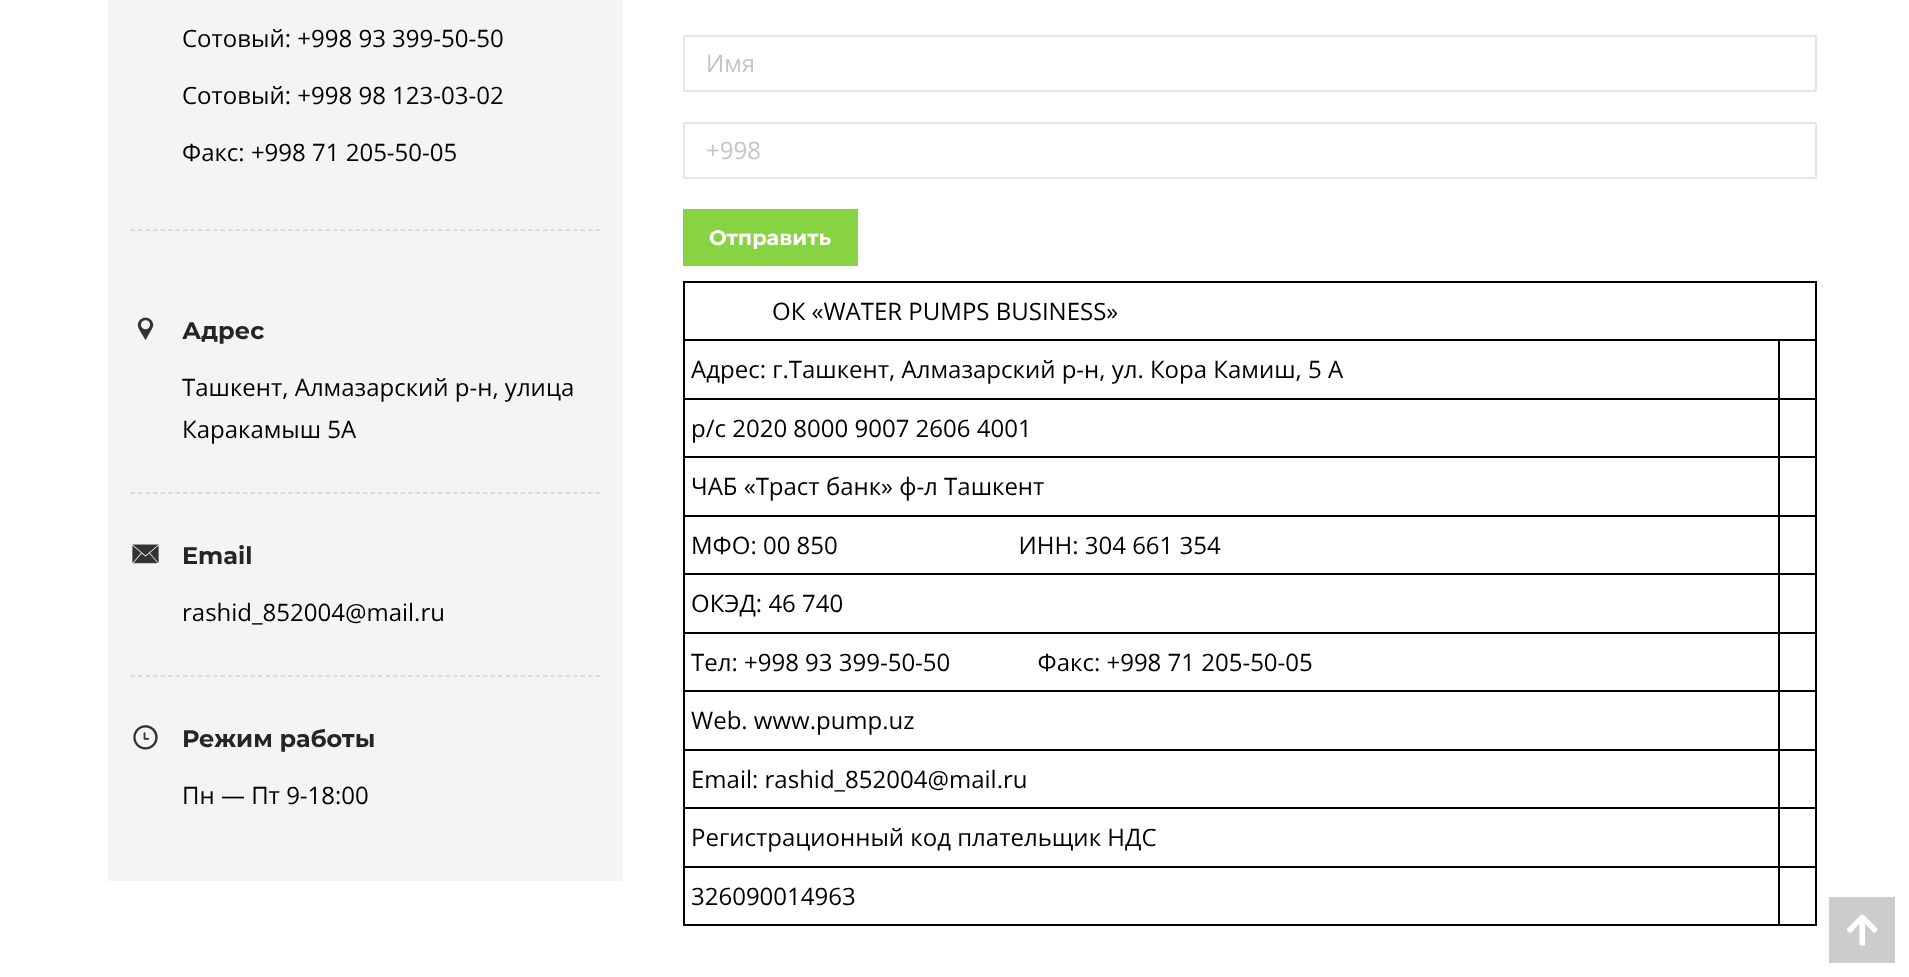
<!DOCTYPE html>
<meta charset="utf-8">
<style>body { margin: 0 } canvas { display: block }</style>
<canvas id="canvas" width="1909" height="977"></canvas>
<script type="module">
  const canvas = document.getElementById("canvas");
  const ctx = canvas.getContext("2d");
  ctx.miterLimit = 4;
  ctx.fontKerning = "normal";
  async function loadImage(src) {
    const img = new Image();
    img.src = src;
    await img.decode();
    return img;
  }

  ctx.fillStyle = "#ffffff";
  ctx.fillRect(0, 0, 1909, 977);
  ctx.fillStyle = "#f4f4f4";
  ctx.fillRect(108, 0, 515, 881);
  ctx.font = "24px Open Sans";
  ctx.fillStyle = "#000000";
  ctx.fillText("Сотовый: +998 93 399-50-50", 182, 47);
  ctx.fillText("Сотовый: +998 98 123-03-02", 182, 104);
  ctx.fillText("Факс: +998 71 205-50-05", 182, 161);
  ctx.beginPath();
  ctx.moveTo(130.5, 230);
  ctx.lineTo(600, 230);
  ctx.strokeStyle = "#d2d2d2";
  ctx.lineWidth = 1.5;
  ctx.setLineDash([4.5, 3]);
  ctx.stroke();
  ctx.drawImage(await loadImage("img1.png"), 137, 317, 17, 23);
  ctx.font = "bold 24px Montserrat";
  ctx.fillStyle = "#252525";
  ctx.fillText("Адрес", 182, 339);
  ctx.font = "24px Open Sans";
  ctx.fillStyle = "#000000";
  ctx.fillText("Ташкент, Алмазарский р-н, улица", 182, 396);
  ctx.fillText("Каракамыш 5А", 182, 438);
  ctx.beginPath();
  ctx.moveTo(130.5, 493);
  ctx.lineTo(600, 493);
  ctx.stroke();
  ctx.drawImage(await loadImage("img2.png"), 132, 544, 27, 20);
  ctx.font = "bold 24px Montserrat";
  ctx.fillStyle = "#252525";
  ctx.fillText("Email", 182, 564);
  ctx.font = "24px Open Sans";
  ctx.fillStyle = "#000000";
  ctx.fillText("rashid_852004@mail.ru", 182, 621);
  ctx.beginPath();
  ctx.moveTo(130.5, 676);
  ctx.lineTo(600, 676);
  ctx.stroke();
  ctx.drawImage(await loadImage("img3.png"), 133, 725, 25, 25);
  ctx.font = "bold 24px Montserrat";
  ctx.fillStyle = "#252525";
  ctx.fillText("Режим работы", 182, 747);
  ctx.font = "24px Open Sans";
  ctx.fillStyle = "#000000";
  ctx.fillText("Пн — Пт 9-18:00", 182, 804);
  ctx.beginPath();
  ctx.roundRect(684, 36, 1132, 55, 0.5);
  ctx.strokeStyle = "#e5e5e5";
  ctx.lineWidth = 2;
  ctx.setLineDash([]);
  ctx.stroke();
  ctx.fillStyle = "#c4c5c9";
  ctx.fillText("Имя", 706, 72);
  ctx.beginPath();
  ctx.roundRect(684, 123, 1132, 55, 0.5);
  ctx.stroke();
  ctx.fillText("+998", 706, 159);
  ctx.fillStyle = "#88d341";
  ctx.fillRect(683, 209, 175, 57);
  ctx.font = "bold 21px Montserrat";
  ctx.fillStyle = "#ffffff";
  ctx.fillText("Отправить", 709, 245);
  ctx.fillStyle = "#000000";
  ctx.fillRect(683, 281, 1134, 2);
  ctx.fillRect(1815, 281, 2, 645);
  ctx.fillRect(683, 924, 1134, 2);
  ctx.fillRect(683, 281, 2, 645);
  ctx.font = "24px Open Sans";
  ctx.fillText("ОК «WATER PUMPS BUSINESS»", 772, 320);
  ctx.fillRect(1778, 339, 39, 2);
  ctx.fillRect(1778, 398, 39, 2);
  ctx.fillRect(1778, 456, 39, 2);
  ctx.fillRect(1778, 515, 39, 2);
  ctx.fillRect(1778, 573, 39, 2);
  ctx.fillRect(1778, 632, 39, 2);
  ctx.fillRect(1778, 690, 39, 2);
  ctx.fillRect(1778, 749, 39, 2);
  ctx.fillRect(1778, 807, 39, 2);
  ctx.fillRect(1778, 866, 39, 2);
  ctx.fillRect(1778, 866, 2, 60);
  ctx.fillRect(683, 866, 1096, 2);
  ctx.fillRect(1778, 807, 2, 60);
  ctx.fillRect(683, 807, 1096, 2);
  ctx.fillRect(1778, 749, 2, 60);
  ctx.fillRect(683, 749, 1096, 2);
  ctx.fillRect(1778, 690, 2, 60);
  ctx.fillRect(683, 690, 1096, 2);
  ctx.fillRect(1778, 632, 2, 60);
  ctx.fillRect(683, 632, 1096, 2);
  ctx.fillRect(1778, 573, 2, 60);
  ctx.fillRect(683, 573, 1096, 2);
  ctx.fillRect(1778, 515, 2, 60);
  ctx.fillRect(683, 515, 1096, 2);
  ctx.fillRect(1778, 456, 2, 60);
  ctx.fillRect(683, 456, 1096, 2);
  ctx.fillRect(1778, 398, 2, 60);
  ctx.fillRect(683, 398, 1096, 2);
  ctx.fillRect(1778, 339, 2, 60);
  ctx.fillRect(683, 339, 1096, 2);
  ctx.fillText("Адрес: г.Ташкент, Алмазарский р-н, ул. Кора Камиш, 5 А", 691, 378);
  ctx.fillText("р/с 2020 8000 9007 2606 4001", 691, 437);
  ctx.fillText("ЧАБ «Траст банк» ф-л Ташкент", 691, 495);
  ctx.fillText("МФО: 00 850                             ИНН: 304 661 354", 691, 554);
  ctx.fillText("ОКЭД: 46 740", 691, 612);
  ctx.fillText("Тел: +998 93 399-50-50              Факс: +998 71 205-50-05", 691, 671);
  ctx.fillText("Web. www.pump.uz", 691, 729);
  ctx.fillText("Email: rashid_852004@mail.ru", 691, 788);
  ctx.fillText("Регистрационный код плательщик НДС", 691, 846);
  ctx.fillText("326090014963", 691, 905);
  ctx.fillStyle = "#cccccc";
  ctx.fillRect(1829, 897, 66, 66);
  ctx.drawImage(await loadImage("img4.png"), 1847, 914, 31, 32);
</script>
